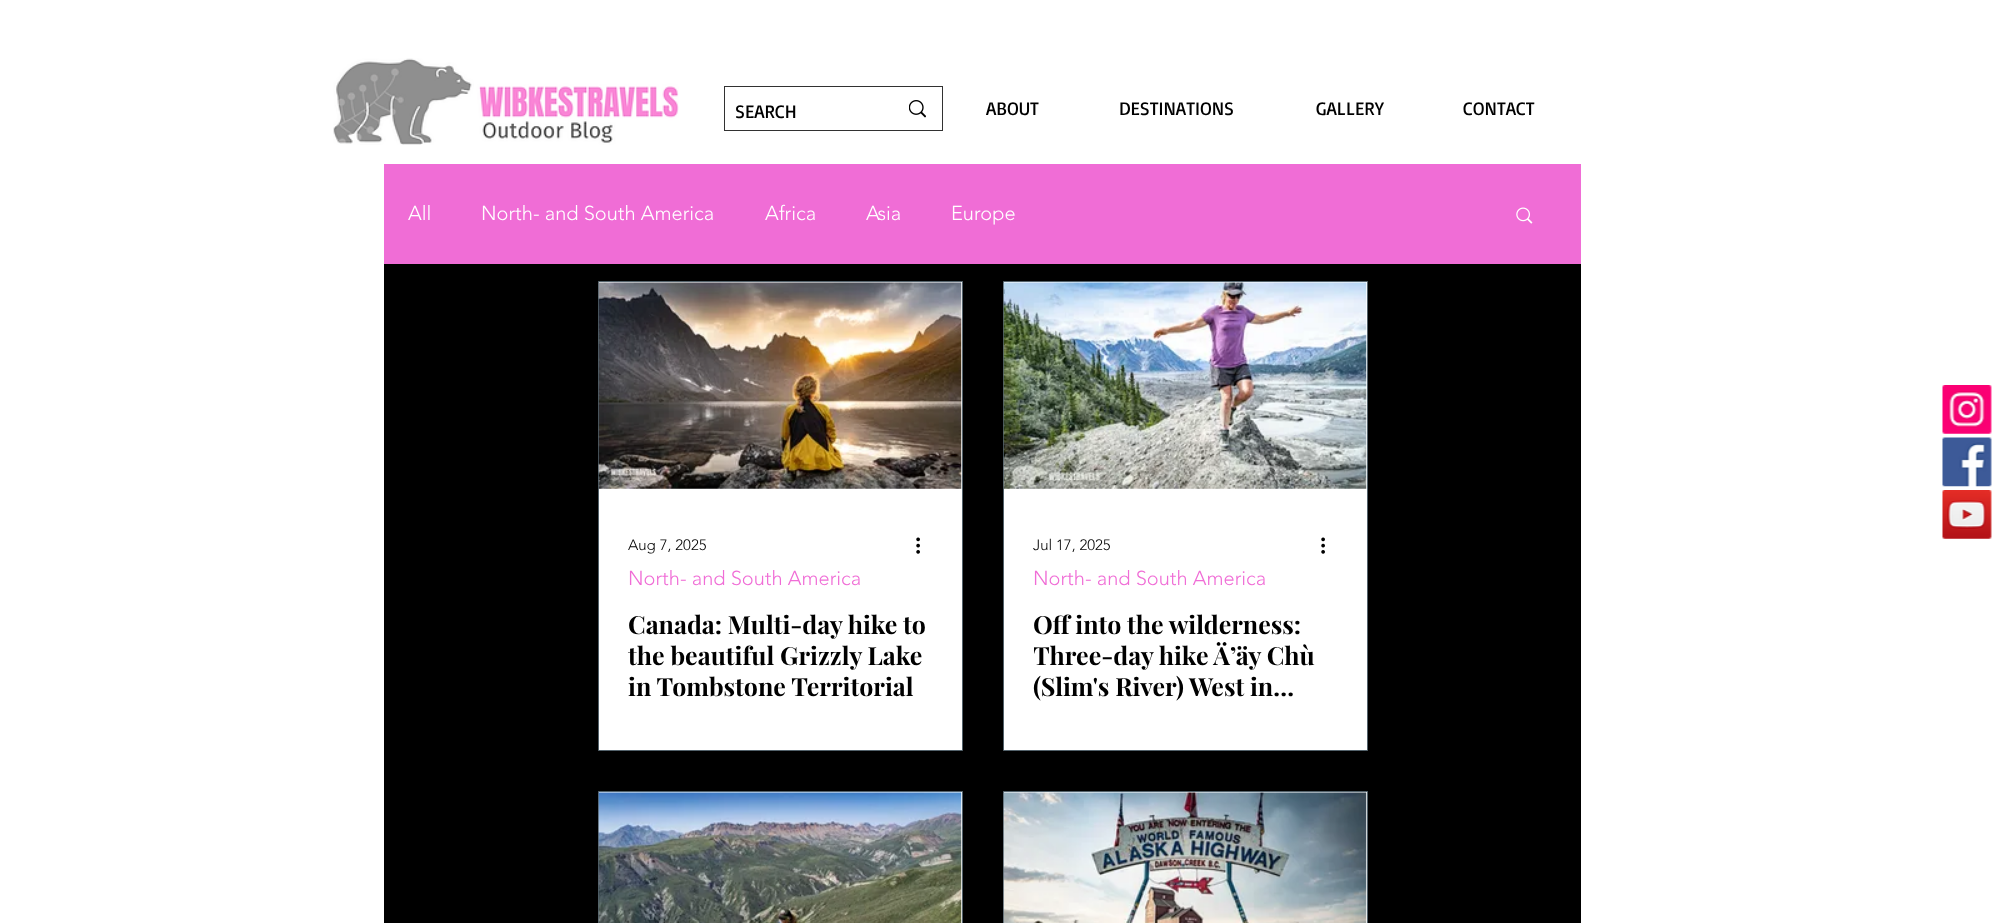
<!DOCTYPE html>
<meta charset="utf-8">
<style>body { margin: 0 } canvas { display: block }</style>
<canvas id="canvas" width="2016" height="923"></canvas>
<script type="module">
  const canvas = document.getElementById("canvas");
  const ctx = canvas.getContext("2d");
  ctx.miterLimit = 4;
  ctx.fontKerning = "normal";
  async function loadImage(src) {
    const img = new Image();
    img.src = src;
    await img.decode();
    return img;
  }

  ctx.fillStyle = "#ffffff";
  ctx.fillRect(0, 0, 2016, 923);
  ctx.drawImage(await loadImage("img1.png"), 333, 58, 346, 87);
  ctx.strokeStyle = "#323232";
  ctx.strokeRect(724.5, 86.5, 218, 44);
  ctx.font = "18.75px Basic";
  ctx.fillStyle = "#000000";
  ctx.fillText("SEARCH", 735, 118);
  ctx.drawImage(await loadImage("img2.png"), 909, 100, 17, 18);
  ctx.fillText("ABOUT", 986, 115);
  ctx.fillText("DESTINATIONS", 1119, 115);
  ctx.fillText("GALLERY", 1316, 115);
  ctx.fillText("CONTACT", 1463, 115);
  ctx.fillRect(384, 264, 1197, 659);
  ctx.fillStyle = "#f06dd6";
  ctx.fillRect(384, 164, 1197, 100);
  ctx.font = "300 20px 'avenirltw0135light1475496'";
  ctx.fillStyle = "#ffffff";
  ctx.fillText("All", 408, 220);
  ctx.fillText("North- and South America", 481, 220);
  ctx.fillText("Africa", 765, 220);
  ctx.fillText("Asia", 866, 220);
  ctx.fillText("Europe", 951, 220);
  ctx.drawImage(await loadImage("img3.png"), 1516, 207, 17, 17);
  ctx.beginPath();
  ctx.rect(598.5, 281.5, 364, 469);
  ctx.fill();
  ctx.strokeStyle = "#53626b";
  ctx.stroke();
  ctx.drawImage(await loadImage("img4.png"), 598, 282, 364, 207);
  ctx.font = "300 15px 'avenirltw0135light1475496'";
  ctx.fillStyle = "#000000";
  ctx.fillText("Aug 7, 2025", 628, 550);
  ctx.drawImage(await loadImage("img5.png"), 916, 537, 4, 17);
  ctx.font = "300 20px 'avenirltw0135light1475496'";
  ctx.fillStyle = "#f06dd6";
  ctx.fillText("North- and South America", 628, 585);
  ctx.font = "bold 25px Playfair Display";
  ctx.fillStyle = "#000000";
  ctx.fillText("Canada: Multi-day hike to", 628, 634);
  ctx.fillText("the beautiful Grizzly Lake", 628, 665);
  ctx.fillText("in Tombstone Territorial", 628, 696);
  ctx.fillStyle = "#ffffff";
  ctx.beginPath();
  ctx.rect(1003.5, 281.5, 364, 469);
  ctx.fill();
  ctx.stroke();
  ctx.drawImage(await loadImage("img6.png"), 1003, 282, 364, 207);
  ctx.font = "300 15px 'avenirltw0135light1475496'";
  ctx.fillStyle = "#000000";
  ctx.fillText("Jul 17, 2025", 1033, 550);
  ctx.drawImage(await loadImage("img5.png"), 1321, 537, 4, 17);
  ctx.font = "300 20px 'avenirltw0135light1475496'";
  ctx.fillStyle = "#f06dd6";
  ctx.fillText("North- and South America", 1033, 585);
  ctx.font = "bold 25px Playfair Display";
  ctx.fillStyle = "#000000";
  ctx.fillText("Off into the wilderness:", 1033, 634);
  ctx.save();
  ctx.beginPath();
  ctx.rect(1034, 608, 302, 93);
  ctx.clip();
  ctx.fillText("Three-day hike Ä’äy Chù", 1033, 665);
  ctx.restore();
  ctx.fillText("(Slim's River) West in…", 1033, 696);
  ctx.fillStyle = "#ffffff";
  ctx.beginPath();
  ctx.rect(598.5, 791.5, 364, 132);
  ctx.fill();
  ctx.stroke();
  ctx.drawImage(await loadImage("img7.png"), 598, 792, 364, 131);
  ctx.beginPath();
  ctx.rect(1003.5, 791.5, 364, 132);
  ctx.fill();
  ctx.stroke();
  ctx.drawImage(await loadImage("img8.png"), 1003, 792, 364, 131);
  ctx.drawImage(await loadImage("img9.png"), 1942, 385, 50, 49);
  ctx.drawImage(await loadImage("img10.png"), 1942, 437, 50, 50);
  ctx.drawImage(await loadImage("img11.png"), 1942, 490, 50, 49);
</script>
